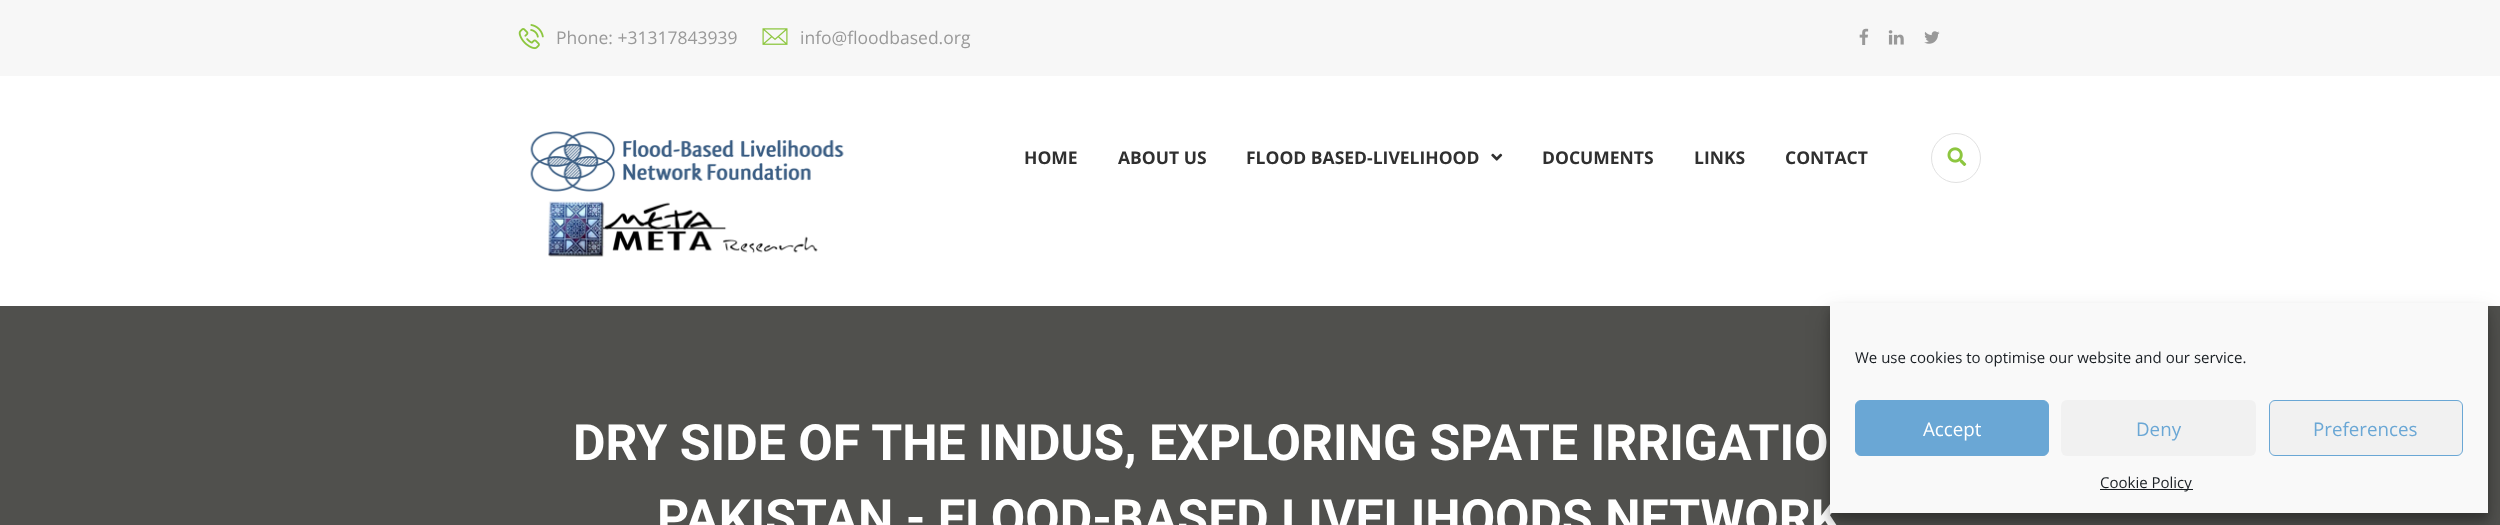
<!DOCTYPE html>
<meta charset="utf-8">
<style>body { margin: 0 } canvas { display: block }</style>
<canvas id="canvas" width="2500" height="525"></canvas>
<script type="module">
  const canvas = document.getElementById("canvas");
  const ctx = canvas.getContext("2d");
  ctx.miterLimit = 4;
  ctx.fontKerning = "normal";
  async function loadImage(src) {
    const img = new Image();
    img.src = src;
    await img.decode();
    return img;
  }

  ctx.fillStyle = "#ffffff";
  ctx.fillRect(0, 0, 2500, 525);
  ctx.fillStyle = "#f7f7f7";
  ctx.fillRect(0, 0, 2500, 76);
  ctx.drawImage(await loadImage("img1.png"), 518, 24, 26, 26);
  ctx.font = "17.5px Open Sans";
  ctx.fillStyle = "#999999";
  ctx.fillText("Phone: +31317843939", 556, 44);
  ctx.drawImage(await loadImage("img2.png"), 762, 28, 26, 17);
  ctx.fillText("info@floodbased.org", 800, 44);
  ctx.drawImage(await loadImage("img3.png"), 1859, 28, 10, 17);
  ctx.drawImage(await loadImage("img4.png"), 1888, 30, 16, 15);
  ctx.drawImage(await loadImage("img5.png"), 1924, 31, 16, 13);
  ctx.drawImage(await loadImage("img6.png"), 530, 131, 314, 126);
  ctx.font = "bold 17.5px Open Sans";
  ctx.fillStyle = "#303030";
  ctx.fillText("HOME", 1024, 164);
  ctx.fillText("ABOUT US", 1118, 164);
  ctx.fillText("FLOOD BASED-LIVELIHOOD", 1246, 164);
  ctx.drawImage(await loadImage("img7.png"), 1491, 153, 12, 8);
  ctx.fillText("DOCUMENTS", 1542, 164);
  ctx.fillText("LINKS", 1694, 164);
  ctx.fillText("CONTACT", 1785, 164);
  ctx.beginPath();
  ctx.arc(1956, 158, 24.5, 0, Math.PI * 2);
  ctx.strokeStyle = "#e1e1e1";
  ctx.stroke();
  ctx.drawImage(await loadImage("img8.png"), 1947, 147, 20, 19);
  ctx.fillStyle = "#50504d";
  ctx.fillRect(0, 306, 2500, 219);
  ctx.font = "bold 50px Roboto";
  ctx.fillStyle = "#ffffff";
  ctx.fillText("DRY SIDE OF THE INDUS, EXPLORING SPATE IRRIGATIO", 573, 460);
  ctx.fillText("PAKISTAN - FLOOD-BASED LIVELIHOODS NETWORK", 657, 535);
  ctx.fillStyle = "rgba(0, 0, 0, 0.23)";
  ctx.filter = "blur(4px)";
  ctx.beginPath();
  ctx.rect(1830, 310, 658, 210);
  ctx.fill();
  ctx.filter = "none";
  ctx.fillStyle = "rgba(0, 0, 0, 0.19)";
  ctx.filter = "blur(12.5px)";
  ctx.beginPath();
  ctx.rect(1830, 315, 658, 210);
  ctx.fill();
  ctx.filter = "none";
  ctx.fillStyle = "#f9f9f9";
  ctx.fillRect(1830, 303, 658, 210);
  ctx.font = "15px Open Sans";
  ctx.fillStyle = "#191e23";
  ctx.fillText("We use cookies to optimise our website and our service.", 1855, 363);
  ctx.fillStyle = "#6aa7d5";
  ctx.beginPath();
  ctx.roundRect(1855.5, 400.5, 193, 55, 5.5);
  ctx.fill();
  ctx.strokeStyle = "#6aa7d5";
  ctx.stroke();
  ctx.font = "18.75px Open Sans";
  ctx.fillStyle = "#ffffff";
  ctx.fillText("Accept", 1923, 436);
  ctx.fillStyle = "#f1f1f1";
  ctx.beginPath();
  ctx.roundRect(2061, 400, 195, 56, 6);
  ctx.fill();
  ctx.fillStyle = "#6aa7d5";
  ctx.fillText("Deny", 2136, 436);
  ctx.fillStyle = "#f1f1f1";
  ctx.beginPath();
  ctx.roundRect(2269.5, 400.5, 193, 55, 5.5);
  ctx.fill();
  ctx.stroke();
  ctx.fillStyle = "#6aa7d5";
  ctx.fillText("Preferences", 2313, 436);
  ctx.fillStyle = "#191e23";
  ctx.fillRect(2100, 489, 93, 1);
  ctx.font = "15px Open Sans";
  ctx.fillText("Cookie Policy", 2100, 488);
</script>
